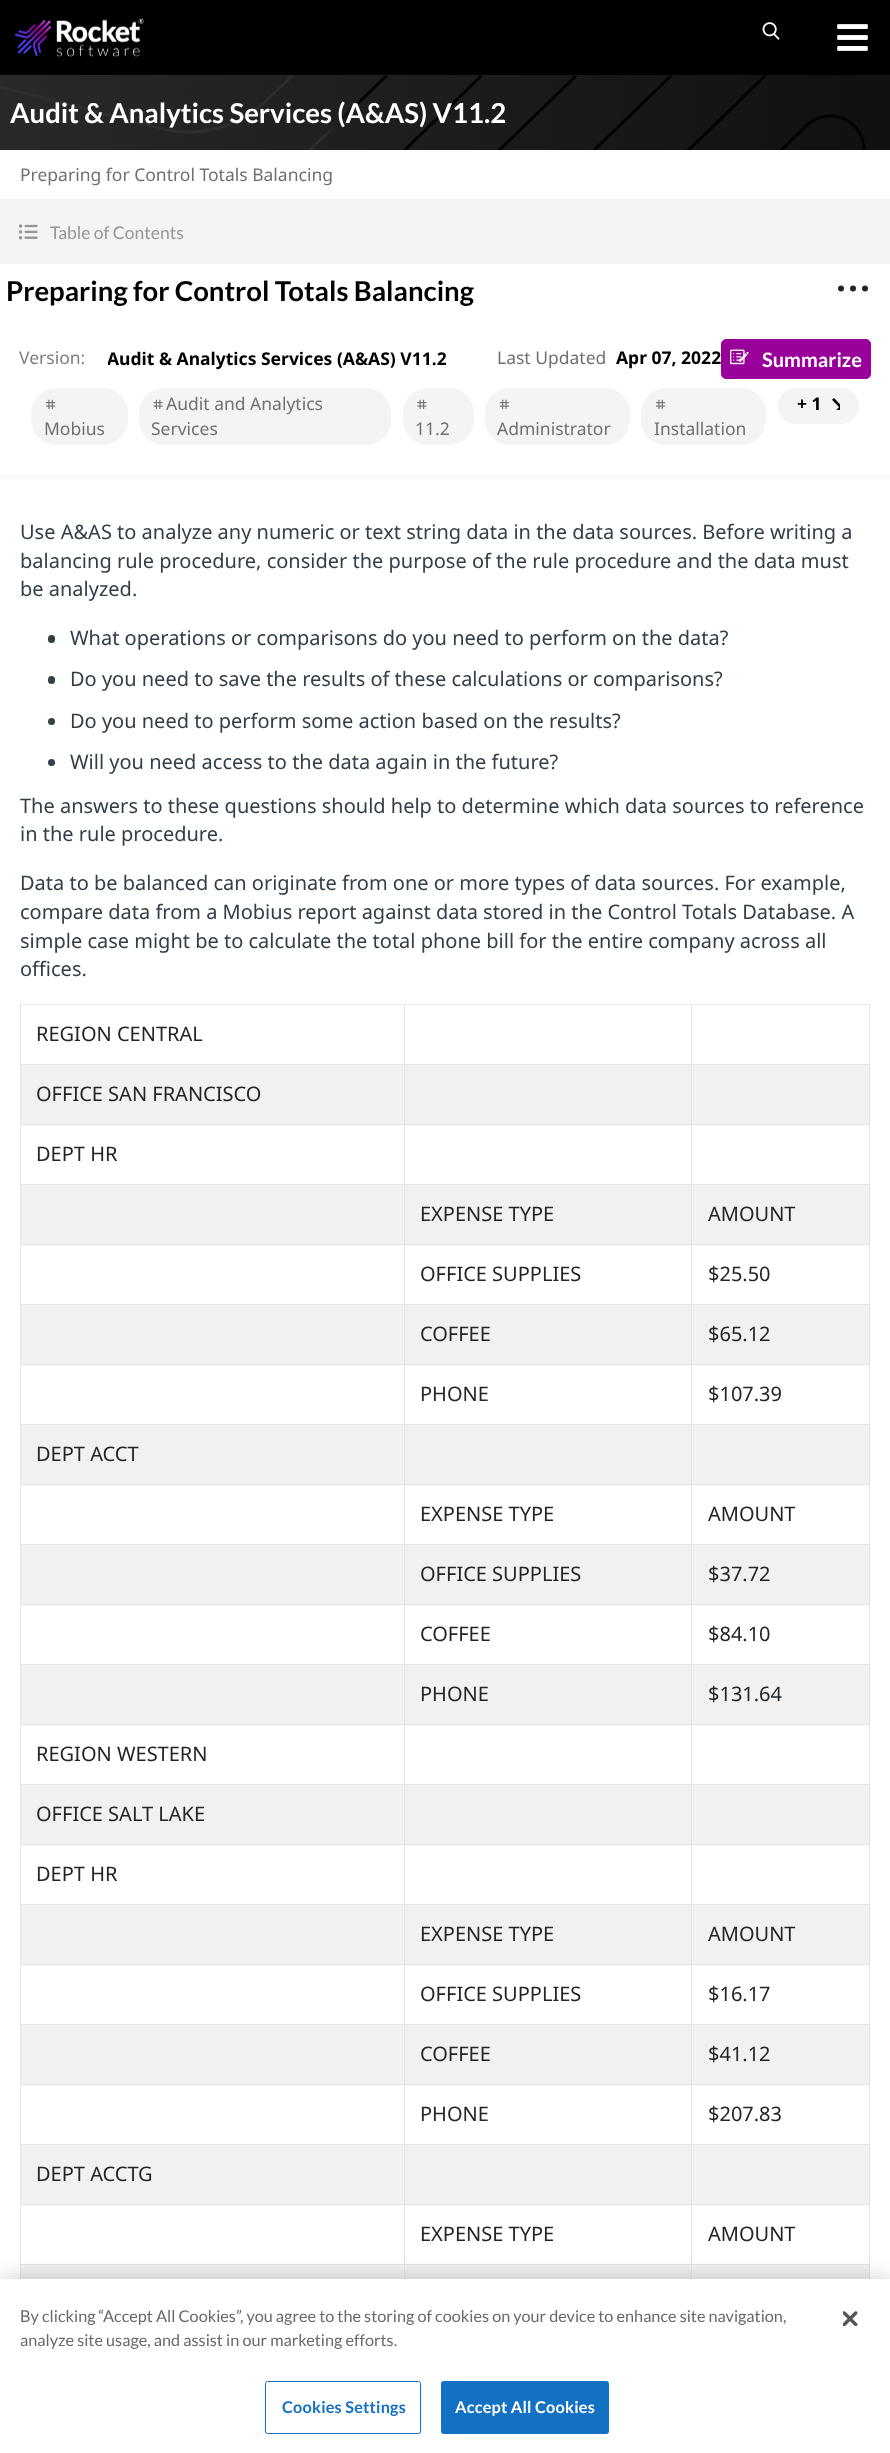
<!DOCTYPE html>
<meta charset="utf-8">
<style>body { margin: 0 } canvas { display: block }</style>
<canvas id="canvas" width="890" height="2453"></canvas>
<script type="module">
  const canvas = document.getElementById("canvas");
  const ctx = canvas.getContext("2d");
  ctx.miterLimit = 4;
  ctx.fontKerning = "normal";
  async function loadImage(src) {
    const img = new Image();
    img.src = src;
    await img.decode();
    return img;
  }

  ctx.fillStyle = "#ffffff";
  ctx.fillRect(0, 0, 890, 2453);
  ctx.fillStyle = "#000000";
  ctx.fillRect(0, 0, 890, 75);
  ctx.drawImage(await loadImage("img1.png"), 15, 18, 129, 39);
  ctx.drawImage(await loadImage("img2.png"), 762, 22, 18, 18);
  ctx.drawImage(await loadImage("img3.png"), 837, 24, 31, 27);
  ctx.drawImage(await loadImage("img4.png"), 0, 75, 890, 75);
  ctx.font = "bold 27.5px Lato";
  ctx.fillStyle = "#ffffff";
  ctx.fillText("Audit & Analytics Services (A&AS) V11.2", 10, 123);
  ctx.fillStyle = "#f2f2f2";
  ctx.fillRect(0, 199, 890, 1);
  ctx.font = "17.5px Noto Sans";
  ctx.fillStyle = "#726f6f";
  ctx.fillText("Preparing for Control Totals Balancing", 20, 181);
  ctx.fillStyle = "#f4f4f4";
  ctx.fillRect(0, 200, 890, 64);
  ctx.drawImage(await loadImage("img5.png"), 19, 224, 19, 16);
  ctx.font = "17.5px Lato";
  ctx.fillStyle = "#93979a";
  ctx.fillText("Table of Contents", 50, 239);
  ctx.fillStyle = "#f2f2f2";
  ctx.fillRect(0, 476, 890, 1);
  ctx.font = "bold 27.5px Lato";
  ctx.fillStyle = "#000000";
  ctx.fillText("Preparing for Control Totals Balancing", 6, 301);
  ctx.fillStyle = "#212529";
  ctx.beginPath();
  ctx.arc(841, 288.5, 3, 0, Math.PI * 2);
  ctx.fill();
  ctx.beginPath();
  ctx.arc(853, 288.5, 3, 0, Math.PI * 2);
  ctx.fill();
  ctx.beginPath();
  ctx.arc(865, 288.5, 3, 0, Math.PI * 2);
  ctx.fill();
  ctx.font = "17.5px Noto Sans";
  ctx.fillStyle = "#7f7f7f";
  ctx.fillText("Version:", 19, 364);
  ctx.save();
  ctx.beginPath();
  ctx.rect(108, 346, 338, 25);
  ctx.clip();
  ctx.font = "bold 17.5px Noto Sans";
  ctx.fillStyle = "#000000";
  ctx.fillText("Audit & Analytics Services (A&AS) V11.2", 107, 365);
  ctx.restore();
  ctx.fillStyle = "#726f6f";
  ctx.fillText("Last Updated", 497, 364);
  ctx.font = "bold 17.5px Noto Sans";
  ctx.fillStyle = "#000000";
  ctx.fillText("Apr 07, 2022", 616, 364);
  ctx.fillStyle = "#990099";
  ctx.beginPath();
  ctx.roundRect(721.5, 339.5, 149, 39, 4.5);
  ctx.fill();
  ctx.strokeStyle = "#990099";
  ctx.stroke();
  ctx.drawImage(await loadImage("img6.png"), 730, 349, 19, 16);
  ctx.font = "bold 20px Lato";
  ctx.fillStyle = "#ffffff";
  ctx.fillText("Summarize", 762, 367);
  ctx.fillStyle = "#f4f4f4";
  ctx.beginPath();
  ctx.roundRect(139, 388, 252, 57, 25);
  ctx.fill();
  ctx.drawImage(await loadImage("img7.png"), 153, 399, 10, 10);
  ctx.font = "17.5px Noto Sans";
  ctx.fillStyle = "#726f6f";
  ctx.fillText("Audit and Analytics", 166, 410);
  ctx.fillText("Services", 151, 435);
  ctx.fillStyle = "#f4f4f4";
  ctx.beginPath();
  ctx.roundRect(778, 388, 81, 36, 18);
  ctx.fill();
  ctx.font = "bold 17.5px Noto Sans";
  ctx.fillStyle = "#000000";
  ctx.fillText("+ 1", 797, 410);
  ctx.drawImage(await loadImage("img8.png"), 832, 398, 8, 12);
  ctx.fillStyle = "#f4f4f4";
  ctx.beginPath();
  ctx.roundRect(31, 388, 97, 57, 25);
  ctx.fill();
  ctx.drawImage(await loadImage("img9.png"), 46, 399, 10, 10);
  ctx.font = "17.5px Noto Sans";
  ctx.fillStyle = "#726f6f";
  ctx.fillText("Mobius", 44, 435);
  ctx.fillStyle = "#f4f4f4";
  ctx.beginPath();
  ctx.roundRect(403, 388, 71, 57, 25);
  ctx.fill();
  ctx.drawImage(await loadImage("img10.png"), 417, 399, 10, 10);
  ctx.fillStyle = "#726f6f";
  ctx.fillText("11.2", 415, 435);
  ctx.fillStyle = "#f4f4f4";
  ctx.beginPath();
  ctx.roundRect(485, 388, 145, 57, 25);
  ctx.fill();
  ctx.drawImage(await loadImage("img11.png"), 499, 399, 10, 10);
  ctx.fillStyle = "#726f6f";
  ctx.fillText("Administrator", 497, 435);
  ctx.fillStyle = "#f4f4f4";
  ctx.beginPath();
  ctx.roundRect(641, 388, 125, 57, 25);
  ctx.fill();
  ctx.drawImage(await loadImage("img9.png"), 656, 399, 10, 10);
  ctx.fillStyle = "#726f6f";
  ctx.fillText("Installation", 654, 435);
  ctx.font = "20px Noto Sans";
  ctx.fillStyle = "#323e48";
  ctx.fillText("Use A&AS to analyze any numeric or text string data in the data sources. Before writing a", 20, 539);
  ctx.fillText("balancing rule procedure, consider the purpose of the rule procedure and the data must", 20, 568);
  ctx.fillText("be analyzed.", 20, 596);
  ctx.beginPath();
  ctx.roundRect(48, 635, 7, 8, 3.5);
  ctx.fill();
  ctx.fillText("What operations or comparisons do you need to perform on the data?", 70, 645);
  ctx.beginPath();
  ctx.roundRect(48, 676, 7, 8, 3.5);
  ctx.fill();
  ctx.fillText("Do you need to save the results of these calculations or comparisons?", 70, 686);
  ctx.beginPath();
  ctx.arc(51.5, 721.5, 3.5, 0, Math.PI * 2);
  ctx.fill();
  ctx.fillText("Do you need to perform some action based on the results?", 70, 728);
  ctx.beginPath();
  ctx.arc(51.5, 762.5, 3.5, 0, Math.PI * 2);
  ctx.fill();
  ctx.fillText("Will you need access to the data again in the future?", 70, 769);
  ctx.fillText("The answers to these questions should help to determine which data sources to reference", 20, 813);
  ctx.fillText("in the rule procedure.", 20, 841);
  ctx.fillText("Data to be balanced can originate from one or more types of data sources. For example,", 20, 890);
  ctx.fillText("compare data from a Mobius report against data stored in the Control Totals Database. A", 20, 919);
  ctx.fillText("simple case might be to calculate the total phone bill for the entire company across all", 20, 948);
  ctx.fillText("offices.", 20, 976);
  ctx.fillStyle = "#e9ecef";
  ctx.fillRect(20, 1004, 850, 1);
  ctx.fillStyle = "#e3e3e3";
  ctx.fillRect(869, 1064, 1, 1215);
  ctx.fillRect(869, 1004, 1, 61);
  ctx.fillStyle = "#f1f1f1";
  ctx.fillRect(21, 1065, 848, 59);
  ctx.fillRect(21, 1185, 848, 59);
  ctx.fillRect(21, 1305, 848, 59);
  ctx.fillRect(21, 1425, 848, 59);
  ctx.fillRect(21, 1545, 848, 59);
  ctx.fillRect(21, 1665, 848, 59);
  ctx.fillRect(21, 1785, 848, 59);
  ctx.fillRect(21, 1905, 848, 59);
  ctx.fillRect(21, 2025, 848, 59);
  ctx.fillRect(21, 2145, 848, 59);
  ctx.fillRect(21, 2265, 848, 14);
  ctx.fillStyle = "#e3e3e3";
  ctx.fillRect(691, 2264, 1, 15);
  ctx.fillRect(691, 2264, 179, 1);
  ctx.fillRect(691, 2204, 1, 61);
  ctx.fillRect(691, 2204, 179, 1);
  ctx.fillRect(691, 2144, 1, 61);
  ctx.fillRect(691, 2144, 179, 1);
  ctx.fillRect(691, 2084, 1, 61);
  ctx.fillRect(691, 2084, 179, 1);
  ctx.fillRect(691, 2024, 1, 61);
  ctx.fillRect(691, 2024, 179, 1);
  ctx.fillRect(691, 1964, 1, 61);
  ctx.fillRect(691, 1964, 179, 1);
  ctx.fillRect(691, 1904, 1, 61);
  ctx.fillRect(691, 1904, 179, 1);
  ctx.fillRect(691, 1844, 1, 61);
  ctx.fillRect(691, 1844, 179, 1);
  ctx.fillRect(691, 1784, 1, 61);
  ctx.fillRect(691, 1784, 179, 1);
  ctx.fillRect(691, 1724, 1, 61);
  ctx.fillRect(691, 1724, 179, 1);
  ctx.fillRect(691, 1664, 1, 61);
  ctx.fillRect(691, 1664, 179, 1);
  ctx.fillRect(691, 1604, 1, 61);
  ctx.fillRect(691, 1604, 179, 1);
  ctx.fillRect(691, 1544, 1, 61);
  ctx.fillRect(691, 1544, 179, 1);
  ctx.fillRect(691, 1484, 1, 61);
  ctx.fillRect(691, 1484, 179, 1);
  ctx.fillRect(691, 1424, 1, 61);
  ctx.fillRect(691, 1424, 179, 1);
  ctx.fillRect(691, 1364, 1, 61);
  ctx.fillRect(691, 1364, 179, 1);
  ctx.fillRect(691, 1304, 1, 61);
  ctx.fillRect(691, 1304, 179, 1);
  ctx.fillRect(691, 1244, 1, 61);
  ctx.fillRect(691, 1244, 179, 1);
  ctx.fillRect(691, 1184, 1, 61);
  ctx.fillRect(691, 1184, 179, 1);
  ctx.fillRect(691, 1124, 1, 61);
  ctx.fillRect(691, 1124, 179, 1);
  ctx.fillRect(691, 1064, 1, 61);
  ctx.fillRect(691, 1064, 179, 1);
  ctx.fillRect(691, 1004, 1, 61);
  ctx.fillRect(404, 2264, 1, 15);
  ctx.fillRect(404, 2264, 289, 1);
  ctx.fillRect(404, 2204, 1, 61);
  ctx.fillRect(404, 2204, 289, 1);
  ctx.fillRect(404, 2144, 1, 61);
  ctx.fillRect(404, 2144, 289, 1);
  ctx.fillRect(404, 2084, 1, 61);
  ctx.fillRect(404, 2084, 289, 1);
  ctx.fillRect(404, 2024, 1, 61);
  ctx.fillRect(404, 2024, 289, 1);
  ctx.fillRect(404, 1964, 1, 61);
  ctx.fillRect(404, 1964, 289, 1);
  ctx.fillRect(404, 1904, 1, 61);
  ctx.fillRect(404, 1904, 289, 1);
  ctx.fillRect(404, 1844, 1, 61);
  ctx.fillRect(404, 1844, 289, 1);
  ctx.fillRect(404, 1784, 1, 61);
  ctx.fillRect(404, 1784, 289, 1);
  ctx.fillRect(404, 1724, 1, 61);
  ctx.fillRect(404, 1724, 289, 1);
  ctx.fillRect(404, 1664, 1, 61);
  ctx.fillRect(404, 1664, 289, 1);
  ctx.fillRect(404, 1604, 1, 61);
  ctx.fillRect(404, 1604, 289, 1);
  ctx.fillRect(404, 1544, 1, 61);
  ctx.fillRect(404, 1544, 289, 1);
  ctx.fillRect(404, 1484, 1, 61);
  ctx.fillRect(404, 1484, 289, 1);
  ctx.fillRect(404, 1424, 1, 61);
  ctx.fillRect(404, 1424, 289, 1);
  ctx.fillRect(404, 1364, 1, 61);
  ctx.fillRect(404, 1364, 289, 1);
  ctx.fillRect(404, 1304, 1, 61);
  ctx.fillRect(404, 1304, 289, 1);
  ctx.fillRect(404, 1244, 1, 61);
  ctx.fillRect(404, 1244, 289, 1);
  ctx.fillRect(404, 1184, 1, 61);
  ctx.fillRect(404, 1184, 289, 1);
  ctx.fillRect(404, 1124, 1, 61);
  ctx.fillRect(404, 1124, 289, 1);
  ctx.fillRect(404, 1064, 1, 61);
  ctx.fillRect(404, 1064, 289, 1);
  ctx.fillRect(404, 1004, 1, 61);
  ctx.fillRect(20, 2264, 1, 15);
  ctx.fillRect(20, 2264, 385, 1);
  ctx.fillRect(20, 2204, 1, 61);
  ctx.fillRect(20, 2204, 385, 1);
  ctx.fillRect(20, 2144, 1, 61);
  ctx.fillRect(20, 2144, 385, 1);
  ctx.fillRect(20, 2084, 1, 61);
  ctx.fillRect(20, 2084, 385, 1);
  ctx.fillRect(20, 2024, 1, 61);
  ctx.fillRect(20, 2024, 385, 1);
  ctx.fillRect(20, 1964, 1, 61);
  ctx.fillRect(20, 1964, 385, 1);
  ctx.fillRect(20, 1904, 1, 61);
  ctx.fillRect(20, 1904, 385, 1);
  ctx.fillRect(20, 1844, 1, 61);
  ctx.fillRect(20, 1844, 385, 1);
  ctx.fillRect(20, 1784, 1, 61);
  ctx.fillRect(20, 1784, 385, 1);
  ctx.fillRect(20, 1724, 1, 61);
  ctx.fillRect(20, 1724, 385, 1);
  ctx.fillRect(20, 1664, 1, 61);
  ctx.fillRect(20, 1664, 385, 1);
  ctx.fillRect(20, 1604, 1, 61);
  ctx.fillRect(20, 1604, 385, 1);
  ctx.fillRect(20, 1544, 1, 61);
  ctx.fillRect(20, 1544, 385, 1);
  ctx.fillRect(20, 1484, 1, 61);
  ctx.fillRect(20, 1484, 385, 1);
  ctx.fillRect(20, 1424, 1, 61);
  ctx.fillRect(20, 1424, 385, 1);
  ctx.fillRect(20, 1364, 1, 61);
  ctx.fillRect(20, 1364, 385, 1);
  ctx.fillRect(20, 1304, 1, 61);
  ctx.fillRect(20, 1304, 385, 1);
  ctx.fillRect(20, 1244, 1, 61);
  ctx.fillRect(20, 1244, 385, 1);
  ctx.fillRect(20, 1184, 1, 61);
  ctx.fillRect(20, 1184, 385, 1);
  ctx.fillRect(20, 1124, 1, 61);
  ctx.fillRect(20, 1124, 385, 1);
  ctx.fillRect(20, 1064, 1, 61);
  ctx.fillRect(20, 1064, 385, 1);
  ctx.fillRect(20, 1004, 1, 61);
  ctx.fillStyle = "#212529";
  ctx.fillText("REGION CENTRAL", 36, 1041);
  ctx.fillText("OFFICE SAN FRANCISCO", 36, 1101);
  ctx.fillText("DEPT HR", 36, 1161);
  ctx.fillText("EXPENSE TYPE", 420, 1221);
  ctx.fillText("AMOUNT", 708, 1221);
  ctx.fillText("OFFICE SUPPLIES", 420, 1281);
  ctx.fillText("$25.50", 708, 1281);
  ctx.fillText("COFFEE", 420, 1341);
  ctx.fillText("$65.12", 708, 1341);
  ctx.fillText("PHONE", 420, 1401);
  ctx.fillText("$107.39", 708, 1401);
  ctx.fillText("DEPT ACCT", 36, 1461);
  ctx.fillText("EXPENSE TYPE", 420, 1521);
  ctx.fillText("AMOUNT", 708, 1521);
  ctx.fillText("OFFICE SUPPLIES", 420, 1581);
  ctx.fillText("$37.72", 708, 1581);
  ctx.fillText("COFFEE", 420, 1641);
  ctx.fillText("$84.10", 708, 1641);
  ctx.fillText("PHONE", 420, 1701);
  ctx.fillText("$131.64", 708, 1701);
  ctx.fillText("REGION WESTERN", 36, 1761);
  ctx.fillText("OFFICE SALT LAKE", 36, 1821);
  ctx.fillText("DEPT HR", 36, 1881);
  ctx.fillText("EXPENSE TYPE", 420, 1941);
  ctx.fillText("AMOUNT", 708, 1941);
  ctx.fillText("OFFICE SUPPLIES", 420, 2001);
  ctx.fillText("$16.17", 708, 2001);
  ctx.fillText("COFFEE", 420, 2061);
  ctx.fillText("$41.12", 708, 2061);
  ctx.fillText("PHONE", 420, 2121);
  ctx.fillText("$207.83", 708, 2121);
  ctx.fillText("DEPT ACCTG", 36, 2181);
  ctx.fillText("EXPENSE TYPE", 420, 2241);
  ctx.fillText("AMOUNT", 708, 2241);
  ctx.fillStyle = "rgba(0, 0, 0, 0.2)";
  ctx.filter = "blur(11px)";
  ctx.beginPath();
  ctx.rect(0, 2279, 890, 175);
  ctx.fill();
  ctx.filter = "none";
  ctx.fillStyle = "#ffffff";
  ctx.fillRect(0, 2279, 890, 174);
  ctx.font = "16.25px Lato";
  ctx.fillStyle = "#696969";
  ctx.fillText("By clicking “Accept All Cookies”, you agree to the storing of cookies on your device to enhance site navigation,", 20, 2322);
  ctx.fillText("analyze site usage, and assist in our marketing efforts.", 20, 2346);
  ctx.beginPath();
  ctx.roundRect(265.5, 2381.5, 155, 52, 2);
  ctx.strokeStyle = "#1371c3";
  ctx.stroke();
  ctx.letterSpacing = "0.2px";
  ctx.font = "bold 16.25px Lato";
  ctx.fillStyle = "#1371c3";
  ctx.fillText("Cookies Settings", 282, 2413);
  ctx.beginPath();
  ctx.roundRect(441.5, 2381.5, 167, 52, 2);
  ctx.fill();
  ctx.stroke();
  ctx.fillStyle = "#ffffff";
  ctx.fillText("Accept All Cookies", 455, 2413);
  ctx.drawImage(await loadImage("img12.png"), 843, 2311, 15, 15);
</script>
